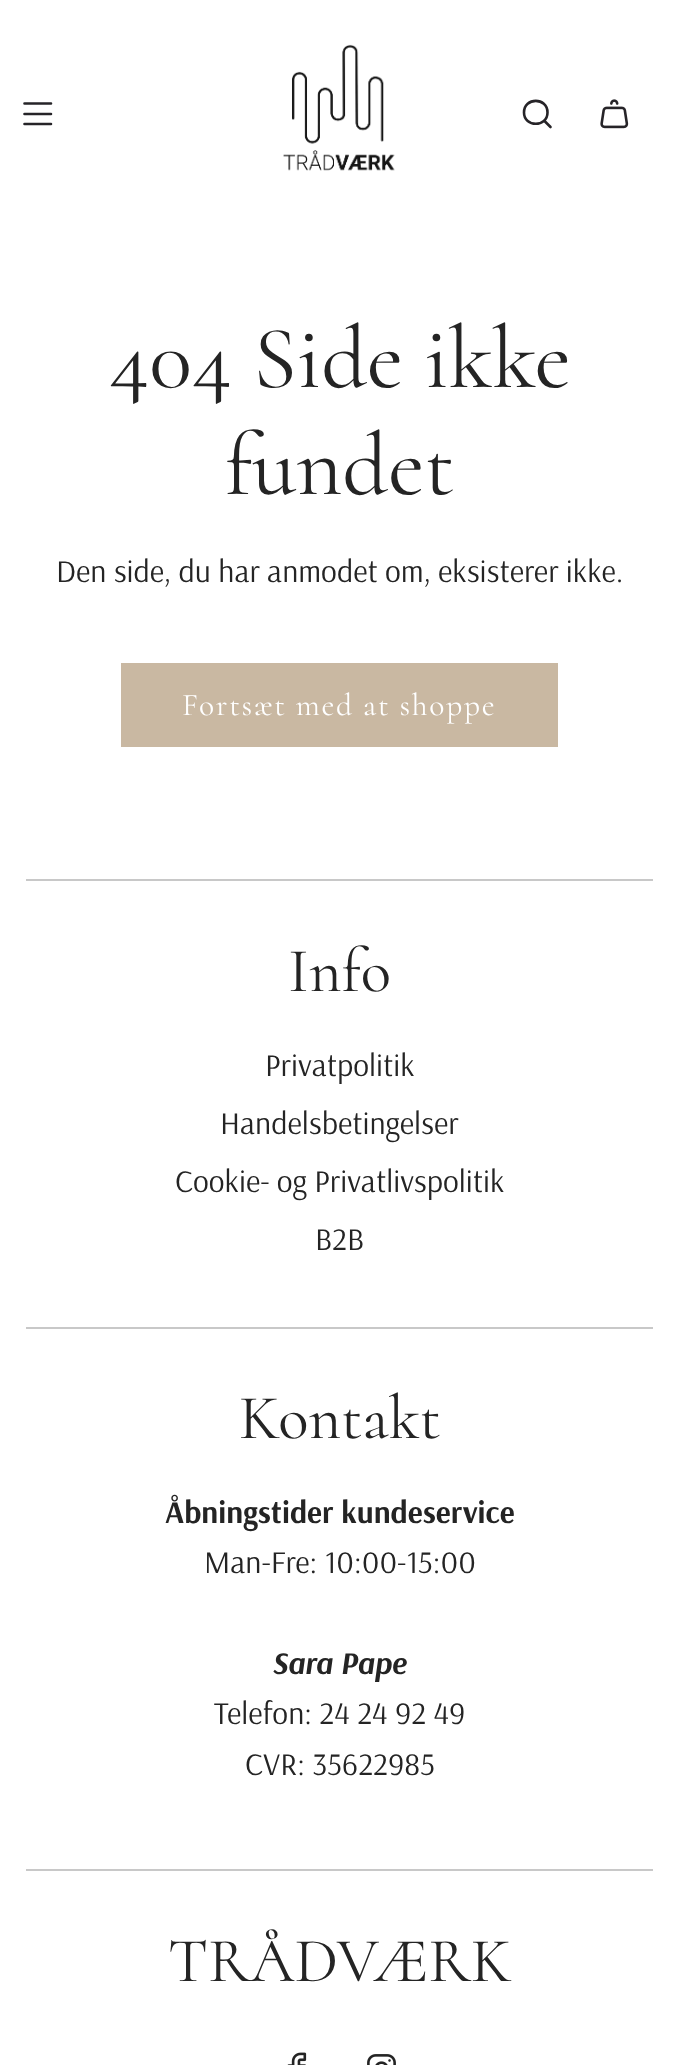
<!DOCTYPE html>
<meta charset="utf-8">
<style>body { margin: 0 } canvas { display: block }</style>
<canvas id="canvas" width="679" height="2065"></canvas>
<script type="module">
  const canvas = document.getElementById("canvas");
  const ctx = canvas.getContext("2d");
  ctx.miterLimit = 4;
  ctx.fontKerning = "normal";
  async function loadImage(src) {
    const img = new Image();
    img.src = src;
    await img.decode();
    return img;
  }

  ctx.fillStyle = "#ffffff";
  ctx.fillRect(0, 0, 679, 2065);
  ctx.beginPath();
  ctx.moveTo(24.5, 103.5);
  ctx.lineTo(51, 103.5);
  ctx.moveTo(24.5, 114);
  ctx.lineTo(51, 114);
  ctx.moveTo(24.5, 124);
  ctx.lineTo(51, 124);
  ctx.strokeStyle = "#262428";
  ctx.lineWidth = 2.6;
  ctx.lineCap = "round";
  ctx.lineJoin = "round";
  ctx.stroke();
  ctx.drawImage(await loadImage("img1.png"), 283, 44, 112, 127);
  ctx.beginPath();
  ctx.moveTo(544.5, 121);
  ctx.lineTo(550.5, 127);
  ctx.moveTo(524, 112.5);
  ctx.bezierCurveTo(524, 127.5, 547.5, 127.5, 547.5, 112.5);
  ctx.bezierCurveTo(547.5, 97, 524, 97, 524, 112.5);
  ctx.closePath();
  ctx.stroke();
  ctx.drawImage(await loadImage("img2.png"), 600, 99, 29, 30);
  ctx.font = "89.25px Cormorant";
  ctx.fillStyle = "#242424";
  ctx.fillText("404 Side ikke", 109, 387);
  ctx.fillText("fundet", 225, 494);
  ctx.font = "31.5px Arsenal";
  ctx.fillText("Den side, du har anmodet om, eksisterer ikke.", 56, 582);
  ctx.fillStyle = "#c9b8a2";
  ctx.fillRect(121, 663, 437, 84);
  ctx.letterSpacing = "1.75px";
  ctx.font = "31.5px Cormorant";
  ctx.fillStyle = "#ffffff";
  ctx.fillText("Fortsæt med at shoppe", 182, 715);
  ctx.fillStyle = "#c8c8c8";
  ctx.fillRect(26, 879, 627, 2);
  ctx.letterSpacing = "0px";
  ctx.font = "63px Cormorant";
  ctx.fillStyle = "#242424";
  ctx.fillText("Info", 288, 991);
  ctx.font = "31.5px Arsenal";
  ctx.fillText("Privatpolitik", 265, 1076);
  ctx.fillText("Handelsbetingelser", 220, 1134);
  ctx.fillText("Cookie- og Privatlivspolitik", 175, 1192);
  ctx.fillText("B2B", 315, 1250);
  ctx.fillStyle = "#c8c8c8";
  ctx.fillRect(26, 1327, 627, 2);
  ctx.font = "63px Cormorant";
  ctx.fillStyle = "#242424";
  ctx.fillText("Kontakt", 239, 1438);
  ctx.font = "bold 31.5px Arsenal";
  ctx.fillText("Åbningstider kundeservice", 165, 1523);
  ctx.font = "31.5px Arsenal";
  ctx.fillText("Man-Fre: 10:00-15:00", 204, 1573);
  ctx.font = "italic bold 31.5px Arsenal";
  ctx.fillText("Sara Pape", 272, 1674);
  ctx.font = "31.5px Arsenal";
  ctx.fillText("Telefon: 24 24 92 49", 214, 1724);
  ctx.fillText("CVR: 35622985", 245, 1775);
  ctx.fillStyle = "#c8c8c8";
  ctx.fillRect(26, 1869, 627, 2);
  ctx.font = "63px Cormorant";
  ctx.fillStyle = "#242424";
  ctx.fillText("TRÅDVÆRK", 168, 1981);
  ctx.drawImage(await loadImage("img3.png"), 287, 2052, 20, 13);
  ctx.drawImage(await loadImage("img4.png"), 367, 2054, 29, 11);
</script>
